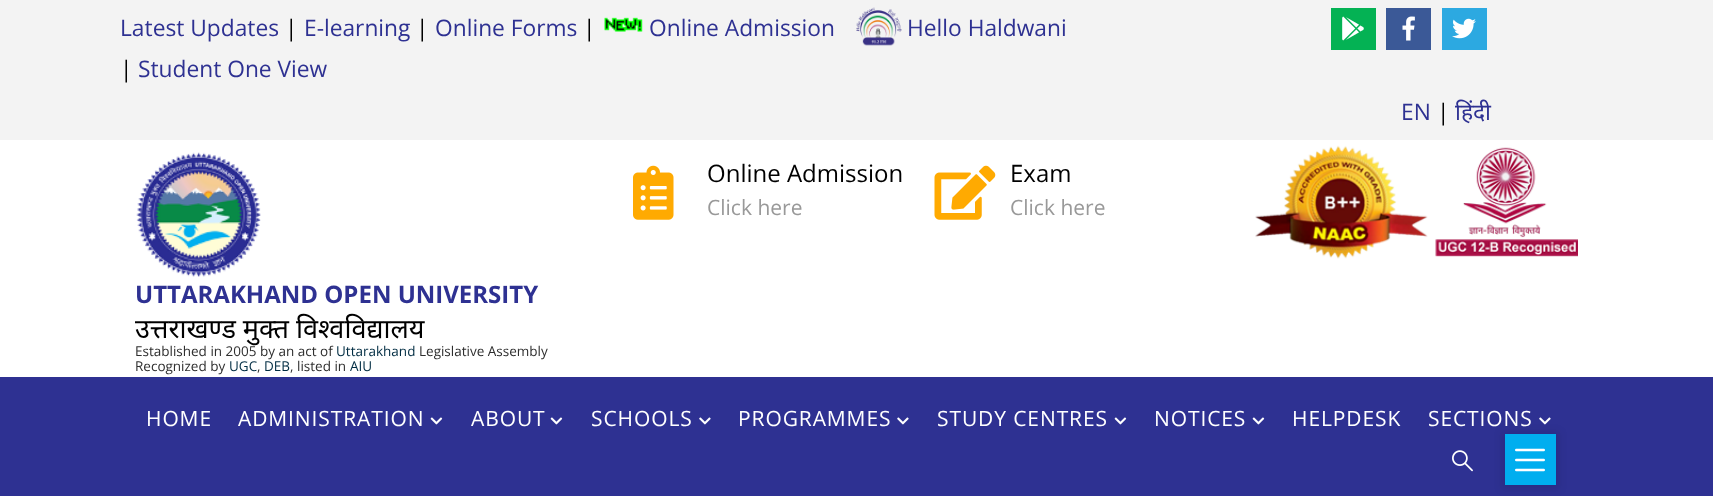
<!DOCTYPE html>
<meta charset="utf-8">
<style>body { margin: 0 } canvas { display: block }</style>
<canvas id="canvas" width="1713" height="496"></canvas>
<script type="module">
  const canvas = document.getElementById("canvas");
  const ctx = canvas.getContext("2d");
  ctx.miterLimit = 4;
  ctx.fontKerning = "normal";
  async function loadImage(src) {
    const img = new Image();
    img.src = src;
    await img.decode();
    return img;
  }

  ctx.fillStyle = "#ffffff";
  ctx.fillRect(0, 0, 1713, 496);
  ctx.fillStyle = "#f3f3f3";
  ctx.fillRect(0, 0, 1713, 140);
  ctx.font = "22.75px Open Sans";
  ctx.fillStyle = "#2e3192";
  ctx.fillText("Latest Updates", 120, 36);
  ctx.fillStyle = "#000000";
  ctx.fillText("|", 285, 36);
  ctx.fillStyle = "#2e3192";
  ctx.fillText("E-learning", 304, 36);
  ctx.fillStyle = "#000000";
  ctx.fillText("|", 416, 36);
  ctx.fillStyle = "#2e3192";
  ctx.fillText("Online Forms", 435, 36);
  ctx.fillStyle = "#000000";
  ctx.fillText("|", 583, 36);
  ctx.drawImage(await loadImage("img1.png"), 604, 17, 39, 15);
  ctx.fillStyle = "#2e3192";
  ctx.fillText("Online Admission", 649, 36);
  ctx.fillStyle = "#000000";
  ctx.fillText("|", 120, 77);
  ctx.fillStyle = "#2e3192";
  ctx.fillText("Student One View", 138, 77);
  ctx.drawImage(await loadImage("img2.png"), 856, 7, 46, 39);
  ctx.fillText("Hello Haldwani", 907, 36);
  ctx.fillStyle = "#04b254";
  ctx.fillRect(1331, 8, 45, 42);
  ctx.drawImage(await loadImage("img3.png"), 1342, 16, 22, 25);
  ctx.fillStyle = "#3b5997";
  ctx.fillRect(1386, 8, 45, 42);
  ctx.drawImage(await loadImage("img4.png"), 1402, 16, 13, 25);
  ctx.fillStyle = "#2ca9e1";
  ctx.fillRect(1442, 8, 45, 42);
  ctx.drawImage(await loadImage("img5.png"), 1452, 18, 24, 21);
  ctx.fillStyle = "#2e3192";
  ctx.fillText("EN", 1401, 120);
  ctx.fillStyle = "#000000";
  ctx.fillText("|", 1437, 120);
  ctx.font = "22.75px Noto Sans";
  ctx.fillStyle = "#2e3192";
  ctx.fillText("हिंदी", 1455, 120);
  ctx.drawImage(await loadImage("img6.png"), 633, 165, 41, 55);
  ctx.font = "24px Open Sans";
  ctx.fillStyle = "#000000";
  ctx.fillText("Online Admission", 707, 182);
  ctx.font = "21px Open Sans";
  ctx.fillStyle = "#999999";
  ctx.fillText("Click here", 707, 215);
  ctx.drawImage(await loadImage("img7.png"), 934, 165, 62, 55);
  ctx.font = "24px Open Sans";
  ctx.fillStyle = "#000000";
  ctx.fillText("Exam", 1010, 182);
  ctx.font = "21px Open Sans";
  ctx.fillStyle = "#999999";
  ctx.fillText("Click here", 1010, 215);
  ctx.drawImage(await loadImage("img8.png"), 1255, 145, 323, 114);
  ctx.drawImage(await loadImage("img9.png"), 136, 152, 125, 125);
  ctx.font = "bold 24px Open Sans";
  ctx.fillStyle = "#2e3192";
  ctx.fillText("UTTARAKHAND OPEN UNIVERSITY", 135, 303);
  ctx.font = "27px Noto Sans";
  ctx.fillStyle = "#000000";
  ctx.fillText("उत्तराखण्ड मुक्त विश्‍वविद्यालय", 135, 338);
  ctx.font = "13.5px Open Sans";
  ctx.fillStyle = "#2e2e2e";
  ctx.fillText("Established in 2005 by an act of", 135, 356);
  ctx.fillStyle = "#002c42";
  ctx.fillText("Uttarakhand", 336, 356);
  ctx.fillStyle = "#2e2e2e";
  ctx.fillText("Legislative Assembly", 419, 356);
  ctx.fillText("Recognized by", 135, 371);
  ctx.fillStyle = "#002c42";
  ctx.fillText("UGC", 229, 371);
  ctx.fillStyle = "#2e2e2e";
  ctx.fillText(",", 257, 371);
  ctx.fillStyle = "#002c42";
  ctx.fillText("DEB", 264, 371);
  ctx.fillStyle = "#2e2e2e";
  ctx.fillText(", listed in", 290, 371);
  ctx.fillStyle = "#002c42";
  ctx.fillText("AIU", 350, 371);
  ctx.fillStyle = "#2e3192";
  ctx.fillRect(0, 377, 1713, 119);
  ctx.letterSpacing = "0.9px";
  ctx.font = "21px Open Sans";
  ctx.fillStyle = "#ffffff";
  ctx.fillText("HOME", 146, 426);
  ctx.fillText("ADMINISTRATION", 238, 426);
  ctx.drawImage(await loadImage("img10.png"), 430, 417, 13, 8);
  ctx.fillText("ABOUT", 471, 426);
  ctx.drawImage(await loadImage("img10.png"), 550, 417, 13, 8);
  ctx.fillText("SCHOOLS", 591, 426);
  ctx.drawImage(await loadImage("img11.png"), 699, 417, 12, 8);
  ctx.fillText("PROGRAMMES", 738, 426);
  ctx.drawImage(await loadImage("img11.png"), 897, 417, 12, 8);
  ctx.fillText("STUDY CENTRES", 937, 426);
  ctx.drawImage(await loadImage("img10.png"), 1114, 417, 13, 8);
  ctx.fillText("NOTICES", 1154, 426);
  ctx.drawImage(await loadImage("img10.png"), 1252, 417, 13, 8);
  ctx.fillText("HELPDESK", 1292, 426);
  ctx.fillText("SECTIONS", 1428, 426);
  ctx.drawImage(await loadImage("img11.png"), 1539, 417, 12, 8);
  ctx.drawImage(await loadImage("img12.png"), 1452, 450, 21, 22);
  ctx.fillStyle = "rgba(0, 0, 0, 0.1)";
  ctx.filter = "blur(4px)";
  ctx.beginPath();
  ctx.rect(1502, 432, 57, 57);
  ctx.fill();
  ctx.filter = "none";
  ctx.fillStyle = "#00aeef";
  ctx.fillRect(1505, 434, 51, 51);
  ctx.drawImage(await loadImage("img13.png"), 1515, 448, 30, 24);
</script>
